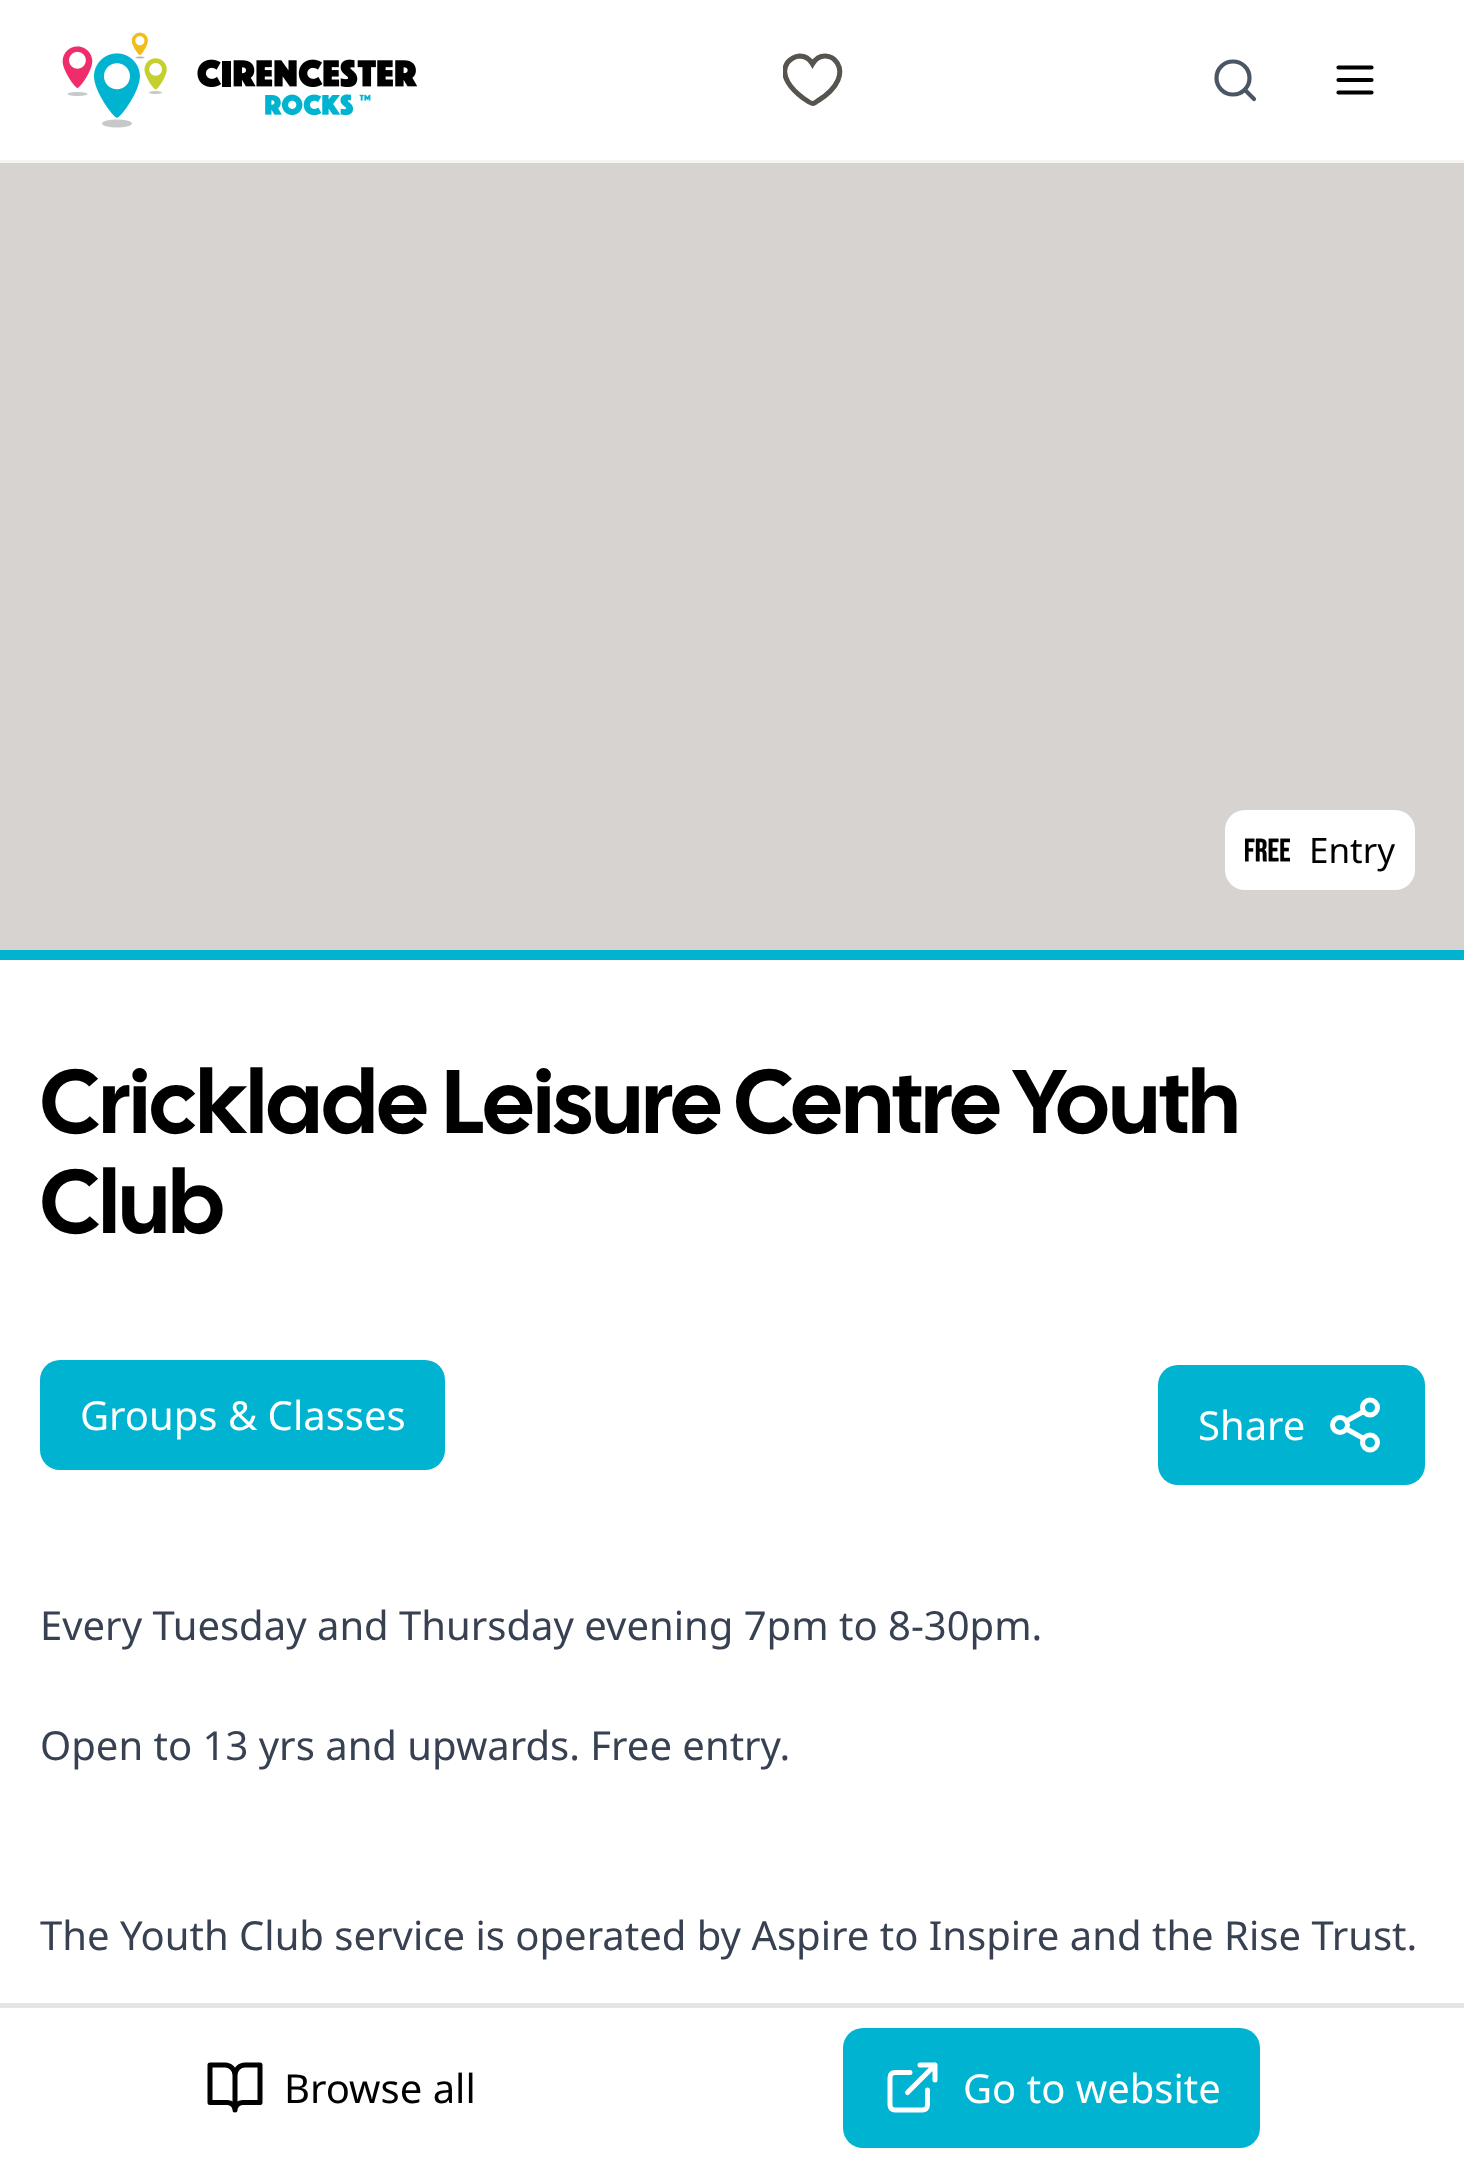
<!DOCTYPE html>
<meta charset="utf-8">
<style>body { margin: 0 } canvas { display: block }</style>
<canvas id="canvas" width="1464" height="2167"></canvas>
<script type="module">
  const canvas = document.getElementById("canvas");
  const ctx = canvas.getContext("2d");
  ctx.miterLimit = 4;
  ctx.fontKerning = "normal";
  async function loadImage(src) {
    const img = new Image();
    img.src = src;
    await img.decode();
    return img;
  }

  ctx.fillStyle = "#ffffff";
  ctx.fillRect(0, 0, 1464, 2167);
  ctx.fillStyle = "#f5f5f4";
  ctx.fillRect(0, 160, 1464, 3);
  ctx.drawImage(await loadImage("img1.png"), 62, 32, 356, 96);
  ctx.save();
  ctx.beginPath();
  ctx.rect(783, 50, 60, 60);
  ctx.clip();
  ctx.beginPath();
  ctx.moveTo(817.5, 101);
  ctx.bezierCurveTo(813.5, 103.5, 813, 104.5, 809, 102);
  ctx.lineTo(803, 98);
  ctx.bezierCurveTo(793, 90.5, 778.5, 76, 787.5, 62.5);
  ctx.bezierCurveTo(790.5, 59, 794.5, 56.5, 799.5, 56);
  ctx.bezierCurveTo(805, 56, 810, 59.5, 812.5, 64);
  ctx.bezierCurveTo(826, 41, 863.5, 72.5, 817.5, 101);
  ctx.closePath();
  ctx.strokeStyle = "#57534e";
  ctx.lineWidth = 5;
  ctx.stroke();
  ctx.restore();
  ctx.beginPath();
  ctx.arc(1233, 78, 16.5, 0, Math.PI * 2);
  ctx.strokeStyle = "#4b5563";
  ctx.lineWidth = 4.2;
  ctx.stroke();
  ctx.beginPath();
  ctx.moveTo(1254, 99);
  ctx.lineTo(1245, 90);
  ctx.lineCap = "round";
  ctx.lineJoin = "round";
  ctx.stroke();
  ctx.beginPath();
  ctx.moveTo(1338.5, 80);
  ctx.lineTo(1371.5, 80);
  ctx.moveTo(1338.5, 67.5);
  ctx.lineTo(1371.5, 67.5);
  ctx.moveTo(1338.5, 92.5);
  ctx.lineTo(1371.5, 92.5);
  ctx.strokeStyle = "#000000";
  ctx.stroke();
  ctx.fillStyle = "#d6d3d1";
  ctx.fillRect(0, 163, 1464, 787);
  ctx.fillStyle = "#00b3d0";
  ctx.fillRect(0, 950, 1464, 10);
  ctx.fillStyle = "#ffffff";
  ctx.beginPath();
  ctx.roundRect(1225, 810, 190, 80, 20);
  ctx.fill();
  ctx.drawImage(await loadImage("img2.png"), 1245, 838, 45, 24);
  ctx.font = "35px Noto Sans";
  ctx.fillStyle = "#000000";
  ctx.fillText("Entry", 1309, 863);
  ctx.font = "600 90px Cal Sans";
  ctx.fillText("Cricklade Leisure Centre Youth", 40, 1133);
  ctx.fillText("Club", 40, 1233);
  ctx.fillStyle = "#00b3d0";
  ctx.beginPath();
  ctx.roundRect(40, 1360, 405, 110, 20);
  ctx.fill();
  ctx.font = "40px Noto Sans";
  ctx.fillStyle = "#ffffff";
  ctx.fillText("Groups & Classes", 80, 1430);
  ctx.fillStyle = "#00b3d0";
  ctx.beginPath();
  ctx.roundRect(1158, 1365, 267, 120, 20);
  ctx.fill();
  ctx.fillStyle = "#ffffff";
  ctx.fillText("Share", 1198, 1440);
  ctx.beginPath();
  ctx.arc(1370, 1407.5, 7.5, 0, Math.PI * 2);
  ctx.strokeStyle = "#ffffff";
  ctx.lineWidth = 5;
  ctx.stroke();
  ctx.beginPath();
  ctx.arc(1340, 1425, 7.5, 0, Math.PI * 2);
  ctx.stroke();
  ctx.beginPath();
  ctx.arc(1370, 1442.5, 7.5, 0, Math.PI * 2);
  ctx.stroke();
  ctx.beginPath();
  ctx.moveTo(1346.5, 1429);
  ctx.lineTo(1363.5, 1438.5);
  ctx.moveTo(1363.5, 1411.5);
  ctx.lineTo(1346.5, 1421);
  ctx.stroke();
  ctx.fillStyle = "#374151";
  ctx.fillText("Every Tuesday and Thursday evening 7pm to 8-30pm.", 40, 1640);
  ctx.fillText("Open to 13 yrs and upwards. Free entry.", 40, 1760);
  ctx.fillText("The Youth Club service is operated by Aspire to Inspire and the Rise Trust.", 40, 1950);
  ctx.fillStyle = "#e7e5e4";
  ctx.fillRect(0, 2003, 1464, 5);
  ctx.beginPath();
  ctx.moveTo(210, 2065);
  ctx.lineTo(225, 2065);
  ctx.bezierCurveTo(230.5, 2065, 235, 2069.5, 235, 2075);
  ctx.lineTo(235, 2110);
  ctx.bezierCurveTo(235, 2106, 231.5, 2102.5, 227.5, 2102.5);
  ctx.lineTo(210, 2102.5);
  ctx.closePath();
  ctx.moveTo(260, 2065);
  ctx.lineTo(245, 2065);
  ctx.bezierCurveTo(239.5, 2065, 235, 2069.5, 235, 2075);
  ctx.lineTo(235, 2110);
  ctx.bezierCurveTo(235, 2106, 238.5, 2102.5, 242.5, 2102.5);
  ctx.lineTo(260, 2102.5);
  ctx.closePath();
  ctx.strokeStyle = "#000000";
  ctx.stroke();
  ctx.fillStyle = "#000000";
  ctx.fillText("Browse all", 284, 2103);
  ctx.fillStyle = "#00b3d0";
  ctx.beginPath();
  ctx.roundRect(843, 2028, 417, 120, 20);
  ctx.fill();
  ctx.beginPath();
  ctx.moveTo(927.5, 2090);
  ctx.lineTo(927.5, 2105);
  ctx.bezierCurveTo(927.5, 2108, 925.5, 2110, 922.5, 2110);
  ctx.lineTo(895, 2110);
  ctx.bezierCurveTo(892, 2110, 890, 2108, 890, 2105);
  ctx.lineTo(890, 2077.5);
  ctx.bezierCurveTo(890, 2074.5, 892, 2072.5, 895, 2072.5);
  ctx.lineTo(910, 2072.5);
  ctx.moveTo(920, 2065);
  ctx.lineTo(935, 2065);
  ctx.lineTo(935, 2080);
  ctx.moveTo(907.5, 2092.5);
  ctx.lineTo(935, 2065);
  ctx.strokeStyle = "#ffffff";
  ctx.stroke();
  ctx.fillStyle = "#ffffff";
  ctx.fillText("Go to website", 963, 2103);
</script>
